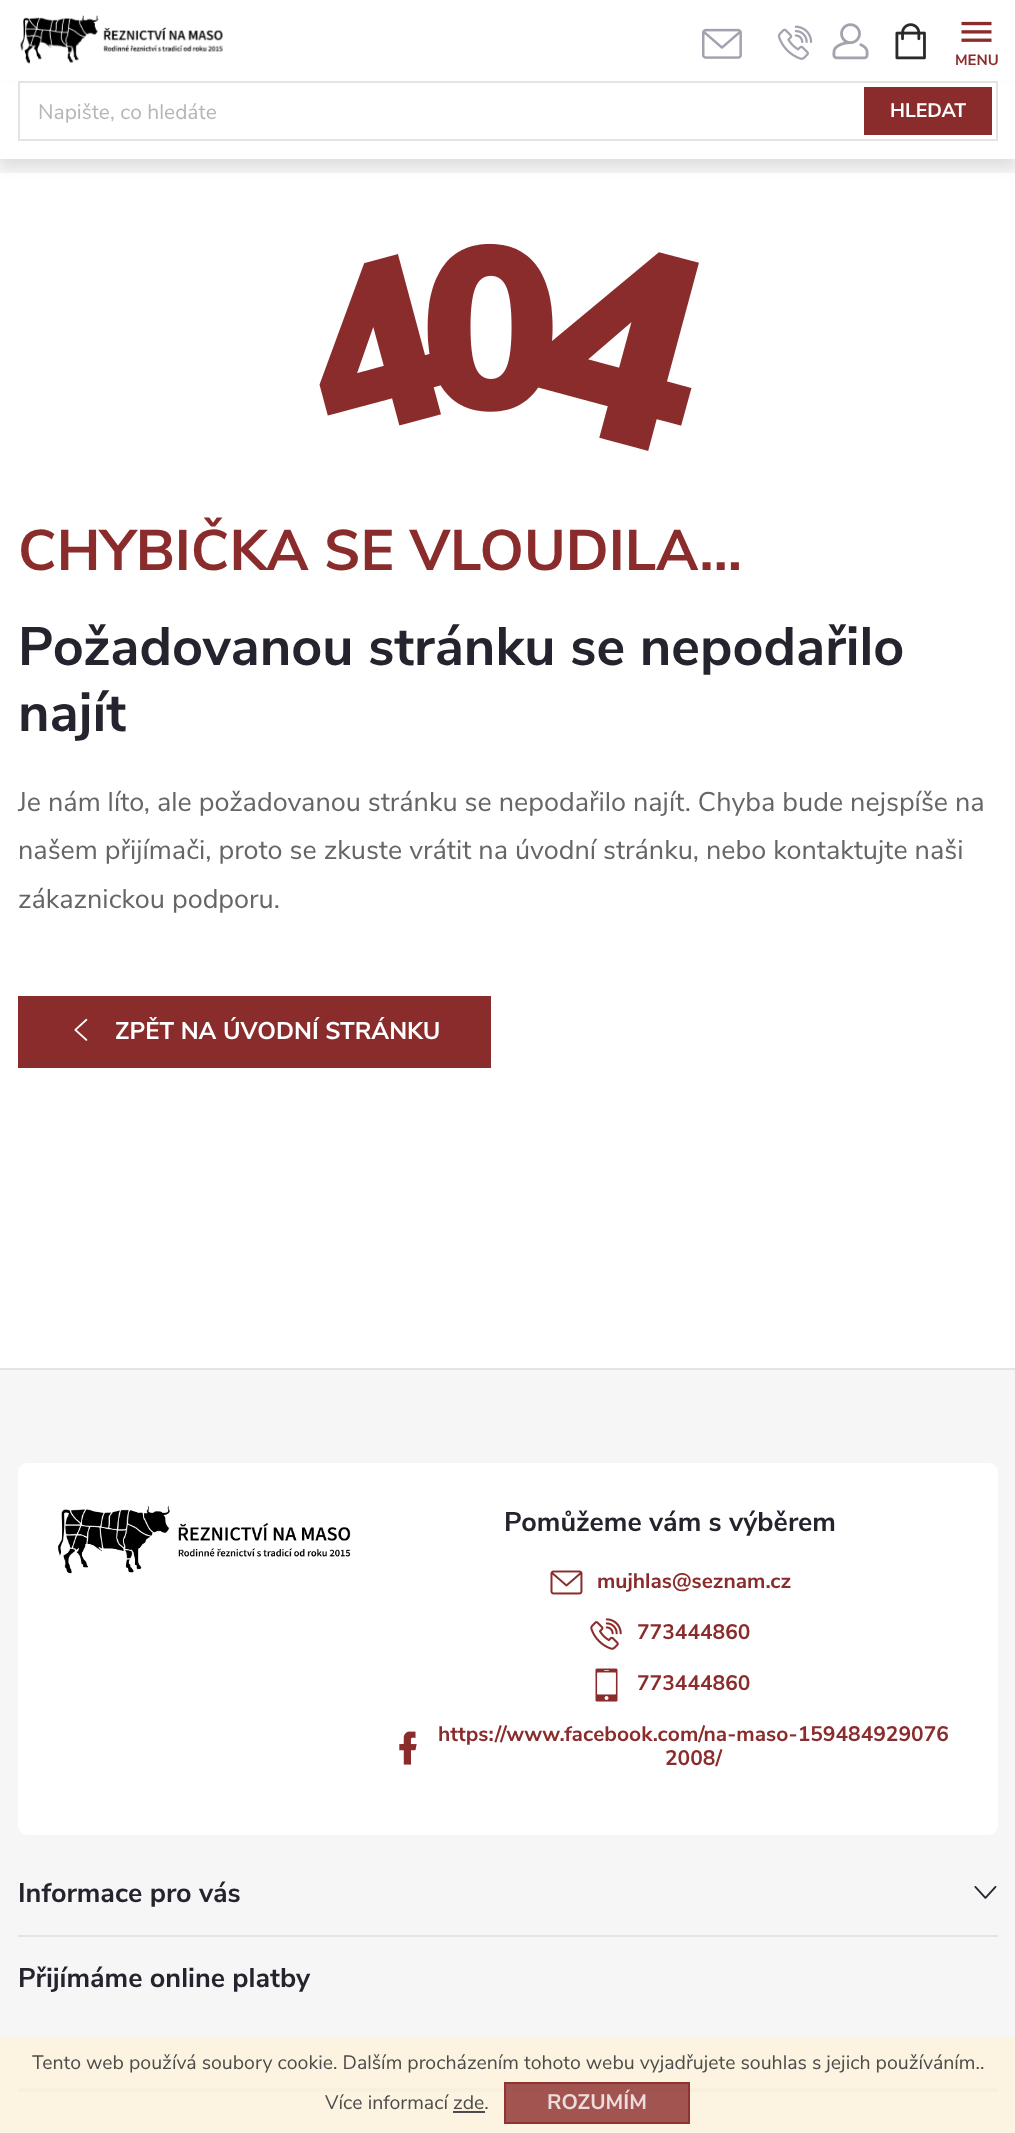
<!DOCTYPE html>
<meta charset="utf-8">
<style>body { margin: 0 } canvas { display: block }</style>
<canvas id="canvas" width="1015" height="2133"></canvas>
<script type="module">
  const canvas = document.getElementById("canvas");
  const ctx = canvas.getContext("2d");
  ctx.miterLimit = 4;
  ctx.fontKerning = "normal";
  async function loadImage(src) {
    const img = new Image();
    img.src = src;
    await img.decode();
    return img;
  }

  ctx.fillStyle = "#ffffff";
  ctx.fillRect(0, 0, 1015, 2133);
  ctx.drawImage(await loadImage("img1.png"), 702, 28, 40, 31);
  ctx.drawImage(await loadImage("img2.png"), 777, 25, 36, 35);
  ctx.drawImage(await loadImage("img3.png"), 832, 23, 37, 37);
  ctx.drawImage(await loadImage("img4.png"), 961, 21, 31, 21);
  ctx.font = "bold 15px Nunito Sans";
  ctx.fillStyle = "#8b2c2c";
  ctx.fillText("MENU", 955, 65);
  ctx.fillStyle = "#f6f6f6";
  ctx.fillRect(0, 159, 1015, 14);
  ctx.fillStyle = "rgba(36, 36, 46, 0.1)";
  ctx.filter = "blur(6px)";
  ctx.beginPath();
  ctx.rect(0, 90, 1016, 78);
  ctx.fill();
  ctx.filter = "none";
  ctx.fillStyle = "#ffffff";
  ctx.fillRect(0, 83, 1015, 76);
  ctx.drawImage(await loadImage("img5.png"), 20, 15, 203, 49);
  ctx.drawImage(await loadImage("img6.png"), 895, 23, 31, 37);
  ctx.strokeStyle = "#e4e4e4";
  ctx.lineWidth = 2;
  ctx.strokeRect(19, 82, 978, 58);
  ctx.font = "21px Nunito Sans";
  ctx.fillStyle = "#b6b6b6";
  ctx.fillText("Napište, co hledáte", 38, 119);
  ctx.fillStyle = "#8b2c2c";
  ctx.fillRect(864, 87, 128, 48);
  ctx.font = "bold 19.5px Nunito Sans";
  ctx.fillStyle = "#ffffff";
  ctx.fillText("HLEDAT", 890, 117);
  ctx.drawImage(await loadImage("img7.png"), 319, 243, 380, 208);
  ctx.font = "bold 57px Nunito Sans";
  ctx.fillStyle = "#8b2c2c";
  ctx.fillText("CHYBIČKA SE VLOUDILA…", 18, 570);
  ctx.font = "bold 54px Nunito Sans";
  ctx.fillStyle = "#24242e";
  ctx.fillText("Požadovanou stránku se nepodařilo", 18, 665);
  ctx.fillText("najít", 18, 731);
  ctx.font = "27px Nunito Sans";
  ctx.fillStyle = "#656565";
  ctx.fillText("Je nám líto, ale požadovanou stránku se nepodařilo najít. Chyba bude nejspíše na", 18, 811);
  ctx.fillText("našem přijímači, proto se zkuste vrátit na úvodní stránku, nebo kontaktujte naši", 18, 859);
  ctx.fillText("zákaznickou podporu.", 18, 908);
  ctx.fillStyle = "#8b2c2c";
  ctx.fillRect(18, 996, 473, 72);
  ctx.drawImage(await loadImage("img8.png"), 74, 1018, 14, 23);
  ctx.font = "bold 24px Nunito Sans";
  ctx.fillStyle = "#ffffff";
  ctx.fillText("ZPĚT NA ÚVODNÍ STRÁNKU", 115, 1039);
  ctx.fillStyle = "#f6f6f6";
  ctx.fillRect(0, 1370, 1015, 667);
  ctx.fillStyle = "#fcf4e0";
  ctx.fillRect(0, 2037, 1015, 96);
  ctx.fillStyle = "#a25450";
  ctx.fillRect(506, 2084, 182, 38);
  ctx.fillStyle = "#e4e4e4";
  ctx.fillRect(0, 1368, 1015, 2);
  ctx.fillStyle = "#ffffff";
  ctx.beginPath();
  ctx.roundRect(18, 1463, 980, 372, 9);
  ctx.fill();
  ctx.drawImage(await loadImage("img9.png"), 57, 1506, 294, 68);
  ctx.font = "bold 27px Nunito Sans";
  ctx.fillStyle = "#24242e";
  ctx.fillText("Pomůžeme vám s výběrem", 504, 1531);
  ctx.drawImage(await loadImage("img10.png"), 550, 1570, 33, 25);
  ctx.font = "bold 21px Nunito Sans";
  ctx.fillStyle = "#8b2c2c";
  ctx.fillText("mujhlas@seznam.cz", 597, 1588);
  ctx.drawImage(await loadImage("img11.png"), 590, 1618, 32, 32);
  ctx.fillText("773444860", 637, 1639);
  ctx.drawImage(await loadImage("img12.png"), 595, 1668, 23, 34);
  ctx.fillText("773444860", 637, 1690);
  ctx.drawImage(await loadImage("img13.png"), 399, 1731, 18, 34);
  ctx.fillText("https://www.facebook.com/na-maso-159484929076", 438, 1741);
  ctx.fillText("2008/", 665, 1765);
  ctx.fillStyle = "#e4e4e4";
  ctx.fillRect(18, 1935, 980, 2);
  ctx.font = "bold 27px Nunito Sans";
  ctx.fillStyle = "#24242e";
  ctx.fillText("Informace pro vás", 18, 1902);
  ctx.drawImage(await loadImage("img14.png"), 974, 1886, 23, 13);
  ctx.fillStyle = "#f8f0dc";
  ctx.fillRect(18, 2088, 980, 4);
  ctx.fillStyle = "#a1534f";
  ctx.fillRect(504, 2088, 186, 4);
  ctx.fillStyle = "#24242e";
  ctx.fillText("Přijímáme online platby", 18, 1987);
  ctx.font = "19.5px Nunito Sans";
  ctx.fillStyle = "#4c4c4c";
  ctx.fillText("Tento web používá soubory cookie. Dalším procházením tohoto webu vyjadřujete souhlas s jejich používáním..", 32, 2069);
  ctx.fillText("Více informací zde.", 325, 2109);
  ctx.strokeStyle = "#903433";
  ctx.strokeRect(505, 2083, 184, 40);
  ctx.font = "bold 21px Nunito Sans";
  ctx.fillStyle = "#ecdddc";
  ctx.fillText("ROZUMÍM", 547, 2109);
  ctx.fillStyle = "#4c4c4c";
  ctx.fillRect(453, 2111, 32, 2);
</script>
